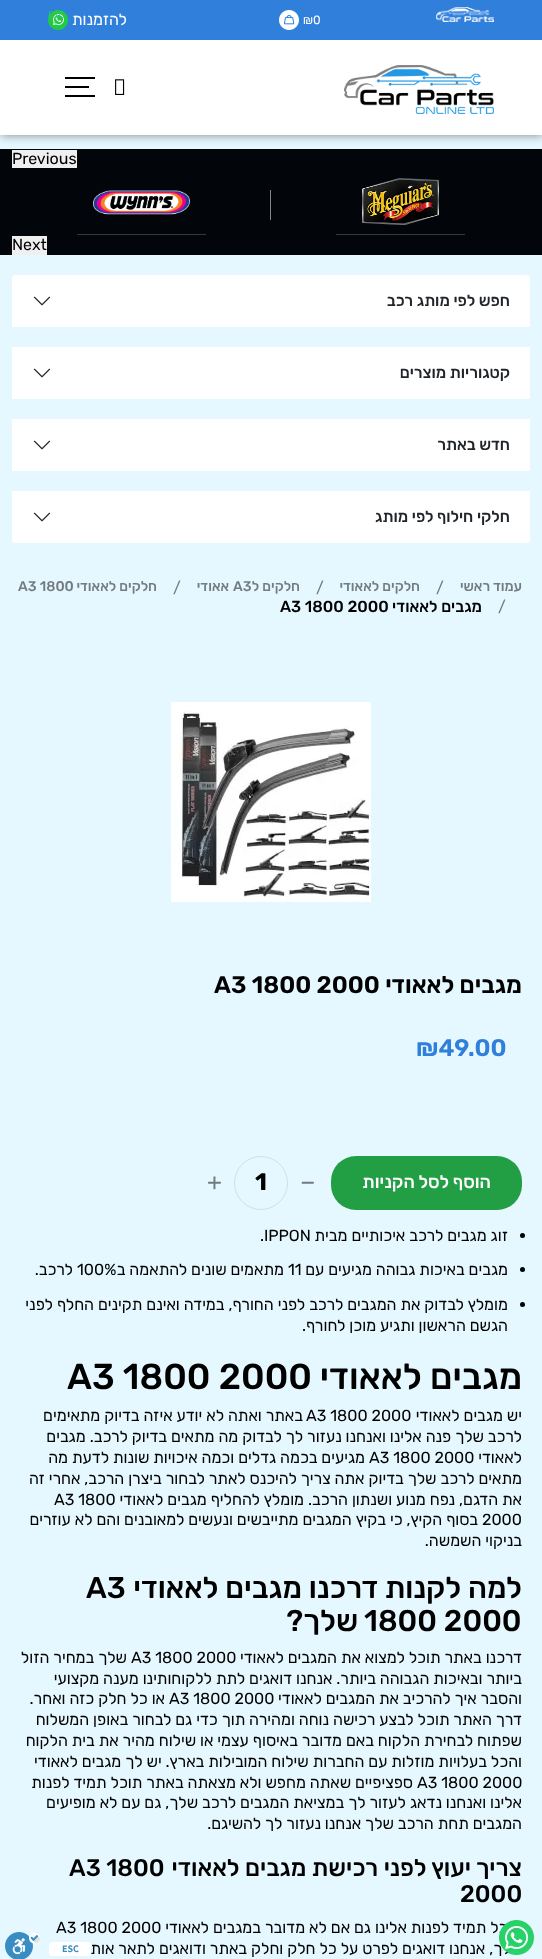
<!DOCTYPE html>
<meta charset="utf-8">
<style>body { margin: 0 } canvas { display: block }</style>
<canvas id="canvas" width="542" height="1959"></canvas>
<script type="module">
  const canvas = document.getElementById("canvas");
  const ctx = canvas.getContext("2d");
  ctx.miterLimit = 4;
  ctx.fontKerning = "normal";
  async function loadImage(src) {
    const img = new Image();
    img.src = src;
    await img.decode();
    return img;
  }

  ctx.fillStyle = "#e6f8ff";
  ctx.fillRect(0, 0, 542, 1959);
  ctx.fillStyle = "#020509";
  ctx.fillRect(0, 149, 542, 106);
  ctx.fillStyle = "#efefef";
  ctx.fillRect(12, 150, 65, 18);
  ctx.fillStyle = "rgba(0, 0, 0, 0.39)";
  ctx.filter = "blur(5px)";
  ctx.beginPath();
  ctx.rect(1, 1, 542, 135);
  ctx.fill();
  ctx.filter = "none";
  ctx.fillStyle = "#3080db";
  ctx.fillRect(0, 0, 542, 40);
  ctx.drawImage(await loadImage("img1.png"), 436, 7, 58, 15);
  ctx.font = "12px Rubik";
  ctx.fillStyle = "#ffffff";
  ctx.fillText("₪0", 303, 24);
  ctx.drawImage(await loadImage("img2.png"), 279, 10, 20, 20);
  ctx.direction = "rtl";
  ctx.font = "16px Rubik";
  ctx.fillText("להזמנות", 127, 25);
  ctx.drawImage(await loadImage("img3.png"), 48, 10, 20, 20);
  ctx.fillRect(0, 40, 542, 95);
  ctx.drawImage(await loadImage("img4.png"), 344, 65, 150, 49);
  ctx.drawImage(await loadImage("img5.png"), 115, 79, 10, 16);
  ctx.fillStyle = "#000000";
  ctx.fillRect(65, 77, 30, 2);
  ctx.fillRect(65, 86, 24, 2);
  ctx.fillRect(65, 95, 30, 2);
  ctx.direction = "ltr";
  ctx.font = "10px Assistant";
  ctx.fillStyle = "#3cc275";
  ctx.fillText("ESC", 48, 18);
  ctx.direction = "rtl";
  ctx.font = "16px Rubik";
  ctx.fillStyle = "#000000";
  ctx.fillText("שלך, אנחנו דואגים לפרט על כל חלק וחלק באתר ודואגים לתאר אותו ולתת", 522, 1954);
  ctx.fillStyle = "#ffffff";
  ctx.beginPath();
  ctx.roundRect(49, 1942, 42, 14, 4);
  ctx.fill();
  ctx.direction = "ltr";
  ctx.font = "bold 10px Assistant";
  ctx.fillStyle = "#3a8dc2";
  ctx.fillText("ESC", 62, 1952);
  ctx.drawImage(await loadImage("img6.png"), 5, 1932, 35, 27);
  ctx.font = "16px Rubik";
  ctx.fillStyle = "#000000";
  ctx.fillText("Previous", 12, 164);
  ctx.fillStyle = "#35373a";
  ctx.fillRect(336, 234, 129, 1);
  ctx.drawImage(await loadImage("img7.png"), 362, 178, 77, 47);
  ctx.fillStyle = "#838586";
  ctx.fillRect(270, 190, 1, 30);
  ctx.fillStyle = "#35373a";
  ctx.fillRect(77, 234, 129, 1);
  ctx.drawImage(await loadImage("img8.png"), 93, 190, 97, 25);
  ctx.fillStyle = "#efefef";
  ctx.fillRect(12, 236, 35, 19);
  ctx.fillStyle = "#000000";
  ctx.fillText("Next", 12, 250);
  ctx.fillStyle = "#ffffff";
  ctx.beginPath();
  ctx.roundRect(12, 275, 518, 52, [3, 3, 0, 0]);
  ctx.fill();
  ctx.direction = "rtl";
  ctx.font = "500 16px Rubik";
  ctx.fillStyle = "#212529";
  ctx.fillText("חפש לפי מותג רכב", 510, 306);
  ctx.drawImage(await loadImage("img9.png"), 33, 296, 18, 10);
  ctx.fillStyle = "#ffffff";
  ctx.fillRect(12, 347, 518, 52);
  ctx.fillStyle = "#212529";
  ctx.fillText("קטגוריות מוצרים", 510, 378);
  ctx.drawImage(await loadImage("img9.png"), 33, 368, 18, 10);
  ctx.fillStyle = "#ffffff";
  ctx.fillRect(12, 419, 518, 52);
  ctx.fillStyle = "#212529";
  ctx.fillText("חדש באתר", 510, 450);
  ctx.drawImage(await loadImage("img9.png"), 33, 440, 18, 10);
  ctx.fillStyle = "#ffffff";
  ctx.beginPath();
  ctx.roundRect(12, 491, 518, 52, [0, 0, 3, 3]);
  ctx.fill();
  ctx.fillStyle = "#212529";
  ctx.fillText("חלקי חילוף לפי מותג", 510, 522);
  ctx.drawImage(await loadImage("img9.png"), 33, 512, 18, 10);
  ctx.font = "500 14px Rubik";
  ctx.fillStyle = "#737c80";
  ctx.fillText("עמוד ראשי", 522, 591);
  ctx.direction = "ltr";
  ctx.font = "16px Rubik";
  ctx.fillText("/", 436, 593);
  ctx.direction = "rtl";
  ctx.font = "500 14px Rubik";
  ctx.fillText("חלקים לאאודי", 420, 591);
  ctx.direction = "ltr";
  ctx.font = "16px Rubik";
  ctx.fillText("/", 316, 593);
  ctx.direction = "rtl";
  ctx.font = "500 14px Rubik";
  ctx.fillText("חלקים ל", 300, 591);
  ctx.direction = "ltr";
  ctx.fillText("A3", 233, 591);
  ctx.direction = "rtl";
  ctx.fillText("אאודי", 229, 591);
  ctx.direction = "ltr";
  ctx.font = "16px Rubik";
  ctx.fillText("/", 173, 593);
  ctx.direction = "rtl";
  ctx.font = "500 14px Rubik";
  ctx.fillText("חלקים לאאודי", 157, 591);
  ctx.direction = "ltr";
  ctx.fillText("A3 1800", 18, 591);
  ctx.font = "16px Rubik";
  ctx.fillText("/", 498, 612);
  ctx.direction = "rtl";
  ctx.font = "500 16px Rubik";
  ctx.fillStyle = "#000000";
  ctx.fillText("מגבים לאאודי", 482, 612);
  ctx.direction = "ltr";
  ctx.fillText("A3 1800 2000", 280, 612);
  ctx.drawImage(await loadImage("img10.png"), 171, 702, 200, 200);
  ctx.direction = "rtl";
  ctx.font = "600 24px Rubik";
  ctx.fillText("מגבים לאאודי", 522, 993);
  ctx.direction = "ltr";
  ctx.fillText("A3 1800 2000", 214, 993);
  ctx.fillStyle = "#3080db";
  ctx.fillText("₪49.00", 416, 1056);
  ctx.fillStyle = "#229e45";
  ctx.beginPath();
  ctx.roundRect(331, 1156, 191, 54, 25);
  ctx.fill();
  ctx.direction = "rtl";
  ctx.font = "500 18px Rubik";
  ctx.fillStyle = "#ffffff";
  ctx.fillText("הוסף לסל הקניות", 491, 1188);
  ctx.direction = "ltr";
  ctx.font = "24px Rubik";
  ctx.fillStyle = "#737c80";
  ctx.fillText("−", 300, 1190);
  ctx.beginPath();
  ctx.arc(261, 1183, 26.5, 0, Math.PI * 2);
  ctx.strokeStyle = "#cfdfe6";
  ctx.stroke();
  ctx.font = "bold 24px Rubik";
  ctx.fillStyle = "#000000";
  ctx.fillText("1", 255, 1190);
  ctx.font = "24px Rubik";
  ctx.fillStyle = "#737c80";
  ctx.fillText("+", 207, 1190);
  ctx.fillStyle = "#000000";
  ctx.beginPath();
  ctx.arc(522.5, 1235.5, 2.5, 0, Math.PI * 2);
  ctx.fill();
  ctx.direction = "rtl";
  ctx.font = "16px Rubik";
  ctx.fillText("זוג מגבים לרכב איכותיים מבית", 508, 1241);
  ctx.direction = "ltr";
  ctx.fillText(".IPPON", 260, 1241);
  ctx.beginPath();
  ctx.arc(522.5, 1269.5, 2.5, 0, Math.PI * 2);
  ctx.fill();
  ctx.direction = "rtl";
  ctx.fillText("מגבים באיכות גבוהה מגיעים עם", 508, 1275);
  ctx.direction = "ltr";
  ctx.fillText("11", 288, 1275);
  ctx.direction = "rtl";
  ctx.fillText("מתאמים שונים להתאמה ב", 284, 1275);
  ctx.direction = "ltr";
  ctx.fillText("100%", 77, 1275);
  ctx.direction = "rtl";
  ctx.fillText("לרכב.", 73, 1275);
  ctx.beginPath();
  ctx.arc(522.5, 1304.5, 2.5, 0, Math.PI * 2);
  ctx.fill();
  ctx.fillText("מומלץ לבדוק את המגבים לרכב לפני החורף, במידה ואינם תקינים החלף לפני", 508, 1310);
  ctx.fillText("הגשם הראשון ותגיע מוכן לחורף.", 508, 1331);
  ctx.font = "500 36px Rubik";
  ctx.fillText("מגבים לאאודי", 522, 1389);
  ctx.direction = "ltr";
  ctx.fillText("A3 1800 2000", 67, 1389);
  ctx.direction = "rtl";
  ctx.font = "16px Rubik";
  ctx.fillText("יש מגבים לאאודי", 522, 1421);
  ctx.direction = "ltr";
  ctx.fillText("A3 1800 2000", 306, 1421);
  ctx.direction = "rtl";
  ctx.fillText("באתר ואתה לא יודע איזה בדיוק מתאימים", 303, 1421);
  ctx.fillText("לרכב שלך פנה אלינו ואנחנו נעזור לך לבדוק מה מתאים בדיוק לרכב. מגבים", 522, 1442);
  ctx.fillText("לאאודי", 522, 1463);
  ctx.direction = "ltr";
  ctx.fillText("A3 1800 2000", 369, 1463);
  ctx.direction = "rtl";
  ctx.fillText("מגיעים בכמה גדלים וכמה איכויות שונות לדעת מה", 365, 1463);
  ctx.fillText("מתאים לרכב שלך בדיוק אתה צריך להיכנס לאתר לבחור ביצרן הרכב, אחרי זה", 522, 1484);
  ctx.fillText("את הדגם, נפח מנוע ושנתון הרכב. מומלץ להחליף מגבים לאאודי", 522, 1505);
  ctx.direction = "ltr";
  ctx.fillText("A3 1800", 54, 1505);
  ctx.fillText("2000", 482, 1525);
  ctx.direction = "rtl";
  ctx.fillText("בסוף הקיץ, כי בקיץ המגבים מתייבשים ונעשים למאובנים והם לא עוזרים", 478, 1525);
  ctx.fillText("בניקוי השמשה.", 522, 1546);
  ctx.font = "500 30px Rubik";
  ctx.fillText("למה לקנות דרכנו מגבים לאאודי", 522, 1598);
  ctx.direction = "ltr";
  ctx.fillText("A3", 86, 1598);
  ctx.fillText("1800 2000", 364, 1631);
  ctx.direction = "rtl";
  ctx.fillText("שלך?", 358, 1631);
  ctx.font = "16px Rubik";
  ctx.fillText("דרכנו באתר תוכל למצוא את המגבים לאאודי", 522, 1663);
  ctx.direction = "ltr";
  ctx.fillText("A3 1800 2000", 131, 1663);
  ctx.direction = "rtl";
  ctx.fillText("שלך במחיר הזול", 127, 1663);
  ctx.fillText("ביותר ובאיכות הגבוהה ביותר. אנחנו דואגים לתת ללקוחותינו מענה מקצועי", 522, 1684);
  ctx.fillText("והסבר איך להרכיב את המגבים לאאודי", 522, 1704);
  ctx.direction = "ltr";
  ctx.fillText("A3 1800 2000", 169, 1704);
  ctx.direction = "rtl";
  ctx.fillText("או כל חלק כזה ואחר.", 165, 1704);
  ctx.fillText("דרך האתר תוכל לבצע רכישה נוחה ומהירה תוך כדי גם לבחור באופן המשלוח", 522, 1725);
  ctx.fillText("שפתוח לבחירת הלקוח באם מדובר באיסוף עצמי או שילוח מהיר את בית הלקוח", 522, 1746);
  ctx.fillText("והכל בעלויות מוזלות עם החברות שילוח המובילות בארץ. יש לך מגבים לאאודי", 522, 1767);
  ctx.direction = "ltr";
  ctx.fillText("A3 1800 2000", 417, 1788);
  ctx.direction = "rtl";
  ctx.fillText("ספציפיים שאתה מחפש ולא מצאתה באתר תוכל תמיד לפנות", 413, 1788);
  ctx.fillText("אלינו ואנחנו נדאג לעזור לך במציאת המגבים לרכב שלך, גם עם לא מופיעים", 522, 1808);
  ctx.fillText("המגבים תחת הרכב שלך אנחנו נעזור לך להשיגם.", 522, 1829);
  ctx.font = "500 24px Rubik";
  ctx.fillText("צריך יעוץ לפני רכישת מגבים לאאודי", 522, 1876);
  ctx.direction = "ltr";
  ctx.fillText("A3 1800", 69, 1876);
  ctx.fillText("2000", 460, 1902);
  ctx.direction = "rtl";
  ctx.font = "16px Rubik";
  ctx.fillText("תוכל תמיד לפנות אלינו גם אם לא מדובר במגבים לאאודי", 522, 1933);
  ctx.direction = "ltr";
  ctx.fillText("A3 1800 2000", 56, 1933);
  ctx.drawImage(await loadImage("img11.png"), 499, 1920, 35, 35);
</script>
